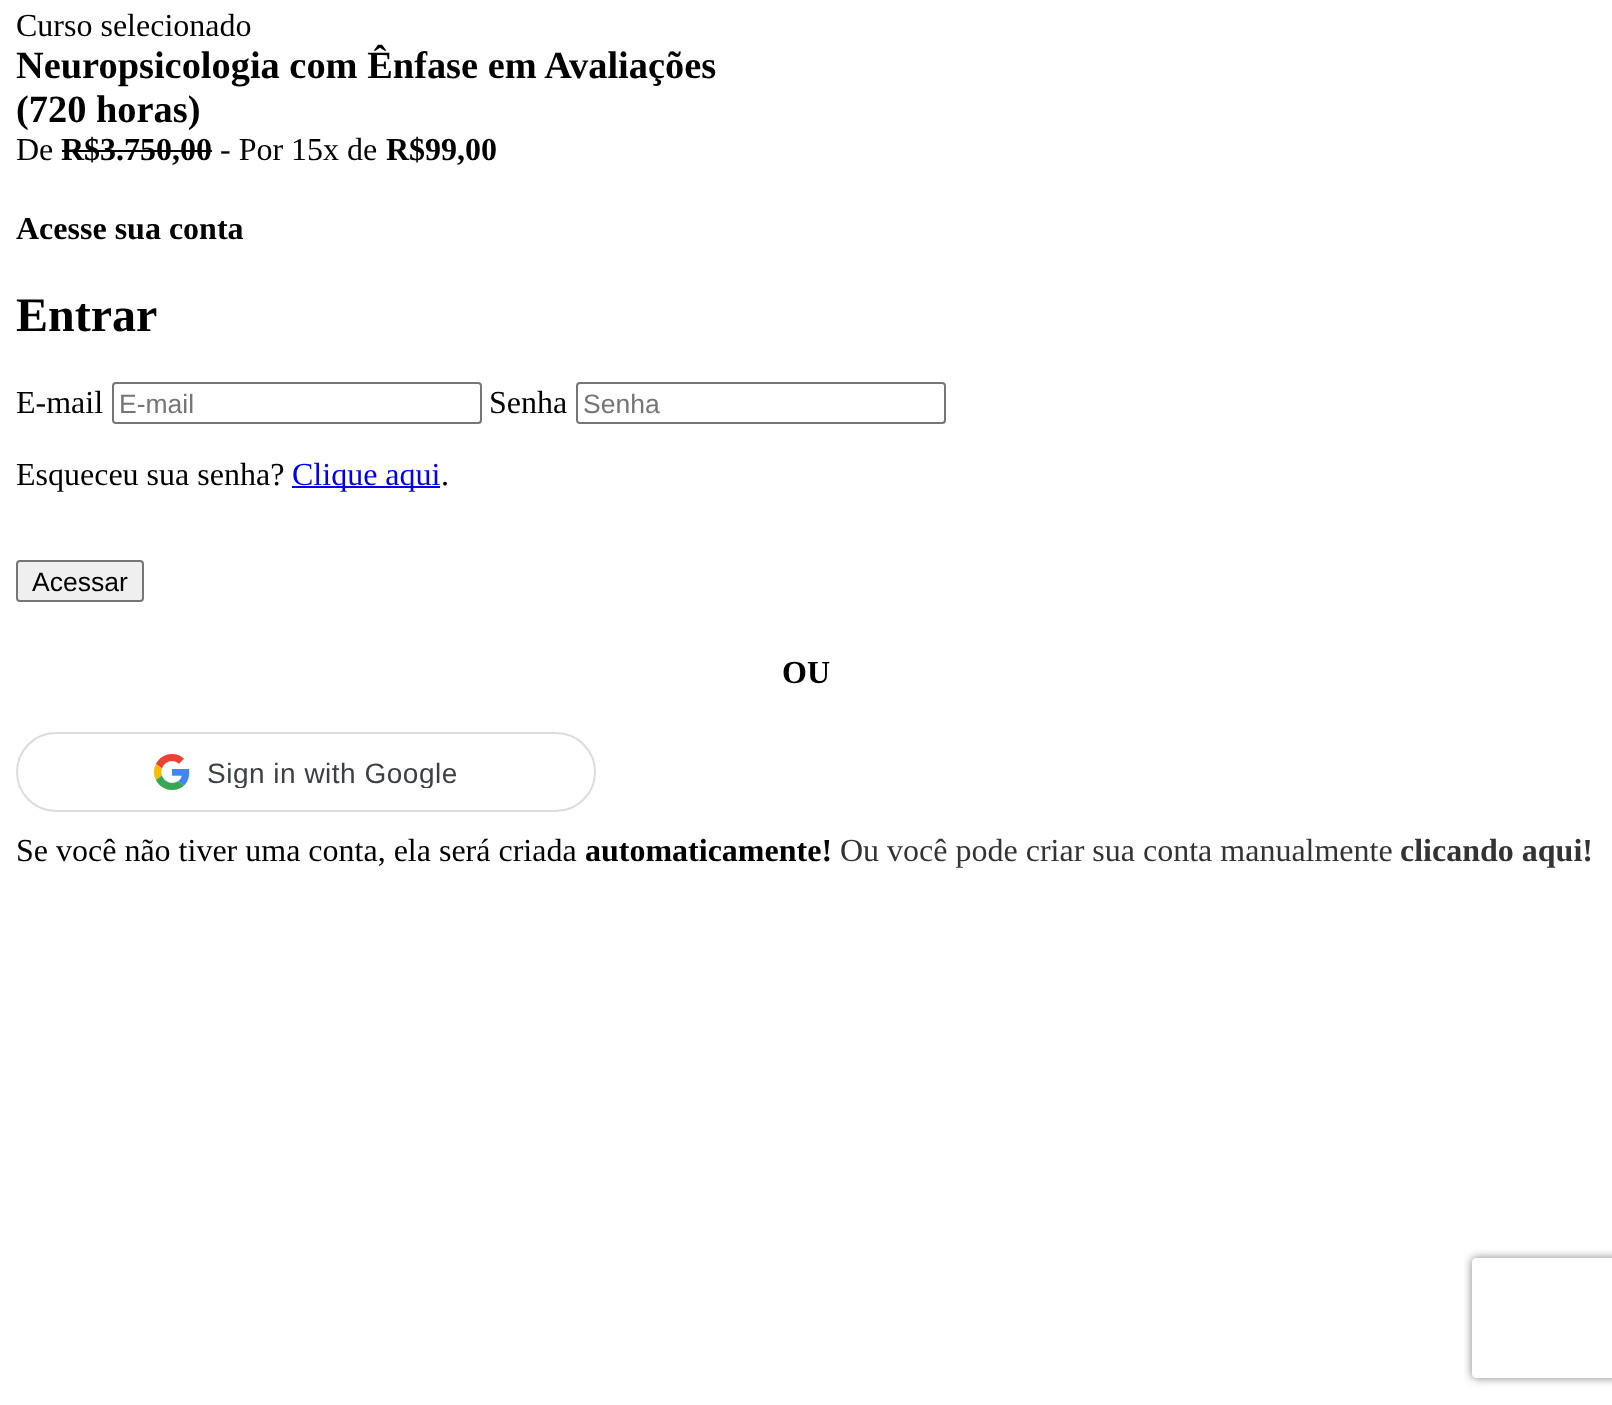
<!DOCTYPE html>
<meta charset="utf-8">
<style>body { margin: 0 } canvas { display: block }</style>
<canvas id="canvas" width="1612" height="1405"></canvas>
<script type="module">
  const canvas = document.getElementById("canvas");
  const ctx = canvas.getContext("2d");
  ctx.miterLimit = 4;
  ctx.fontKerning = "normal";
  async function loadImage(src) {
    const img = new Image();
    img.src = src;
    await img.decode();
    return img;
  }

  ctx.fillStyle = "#ffffff";
  ctx.fillRect(0, 0, 1612, 1405);
  ctx.font = "32px Liberation Serif";
  ctx.fillStyle = "#000000";
  ctx.fillText("Curso selecionado", 16, 36);
  ctx.font = "bold 38.4px Liberation Serif";
  ctx.fillText("Neuropsicologia com Ênfase em Avaliações", 16, 78);
  ctx.fillText("(720 horas)", 16, 122);
  ctx.font = "32px Liberation Serif";
  ctx.fillText("De", 16, 160);
  ctx.font = "bold 32px Liberation Serif";
  ctx.fillText("R$3.750,00", 61, 160);
  ctx.fillRect(62, 150, 150, 2);
  ctx.font = "32px Liberation Serif";
  ctx.fillText("- Por 15x de", 220, 160);
  ctx.font = "bold 32px Liberation Serif";
  ctx.fillText("R$99,00", 386, 160);
  ctx.fillText("Acesse sua conta", 16, 239);
  ctx.font = "bold 48px Liberation Serif";
  ctx.fillText("Entrar", 16, 331);
  ctx.font = "32px Liberation Serif";
  ctx.fillText("E-mail", 16, 413);
  ctx.beginPath();
  ctx.roundRect(113, 383, 368, 40, 3);
  ctx.strokeStyle = "#767676";
  ctx.lineWidth = 2;
  ctx.stroke();
  ctx.font = "26.5px Liberation Sans";
  ctx.fillStyle = "#757575";
  ctx.fillText("E-mail", 119, 413);
  ctx.font = "32px Liberation Serif";
  ctx.fillStyle = "#000000";
  ctx.fillText("Senha", 489, 413);
  ctx.beginPath();
  ctx.roundRect(577, 383, 368, 40, 3);
  ctx.stroke();
  ctx.font = "26.5px Liberation Sans";
  ctx.fillStyle = "#757575";
  ctx.fillText("Senha", 583, 413);
  ctx.font = "32px Liberation Serif";
  ctx.fillStyle = "#000000";
  ctx.fillText("Esqueceu sua senha?", 16, 485);
  ctx.fillStyle = "#0000ee";
  ctx.fillRect(292, 486, 148, 2);
  ctx.fillText("Clique aqui", 292, 485);
  ctx.fillStyle = "#000000";
  ctx.fillText(".", 441, 485);
  ctx.fillStyle = "#efefef";
  ctx.beginPath();
  ctx.roundRect(17, 561, 126, 40, 3);
  ctx.fill();
  ctx.stroke();
  ctx.font = "26.5px Liberation Sans";
  ctx.fillStyle = "#000000";
  ctx.fillText("Acessar", 32, 591);
  ctx.font = "bold 32px Liberation Serif";
  ctx.fillText("OU", 782, 683);
  ctx.beginPath();
  ctx.roundRect(17, 733, 578, 78, 39);
  ctx.strokeStyle = "#dadce0";
  ctx.stroke();
  ctx.drawImage(await loadImage("img1.png"), 154, 754, 36, 36);
  ctx.save();
  ctx.beginPath();
  ctx.rect(206, 756, 252, 32);
  ctx.clip();
  ctx.letterSpacing = "0.5px";
  ctx.font = "28px Liberation Sans";
  ctx.fillStyle = "#3c4043";
  ctx.fillText("Sign in with Google", 207, 783);
  ctx.restore();
  ctx.font = "32px Liberation Serif";
  ctx.fillText("Se você não tiver uma conta, ela será criada", 16, 861);
  ctx.font = "bold 32px Liberation Serif";
  ctx.fillText("automaticamente!", 585, 861);
  ctx.font = "32px Liberation Serif";
  ctx.fillStyle = "#333333";
  ctx.fillText("Ou você pode criar sua conta manualmente", 840, 861);
  ctx.font = "bold 32px Liberation Serif";
  ctx.fillText("clicando aqui!", 1400, 861);
  ctx.save();
  ctx.beginPath();
  ctx.moveTo(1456, 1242);
  ctx.lineTo(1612, 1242);
  ctx.lineTo(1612, 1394);
  ctx.lineTo(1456, 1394);
  ctx.closePath();
  ctx.moveTo(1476, 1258);
  ctx.lineTo(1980, 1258);
  ctx.bezierCurveTo(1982, 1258, 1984, 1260, 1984, 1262);
  ctx.lineTo(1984, 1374);
  ctx.bezierCurveTo(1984, 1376, 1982, 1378, 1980, 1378);
  ctx.lineTo(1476, 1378);
  ctx.bezierCurveTo(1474, 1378, 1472, 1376, 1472, 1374);
  ctx.lineTo(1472, 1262);
  ctx.bezierCurveTo(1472, 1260, 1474, 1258, 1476, 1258);
  ctx.closePath();
  ctx.clip("evenodd");
  ctx.fillStyle = "#808080";
  ctx.filter = "blur(5px)";
  ctx.beginPath();
  ctx.roundRect(1472, 1258, 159, 120, 4);
  ctx.fill();
  ctx.filter = "none";
  ctx.restore();
</script>
